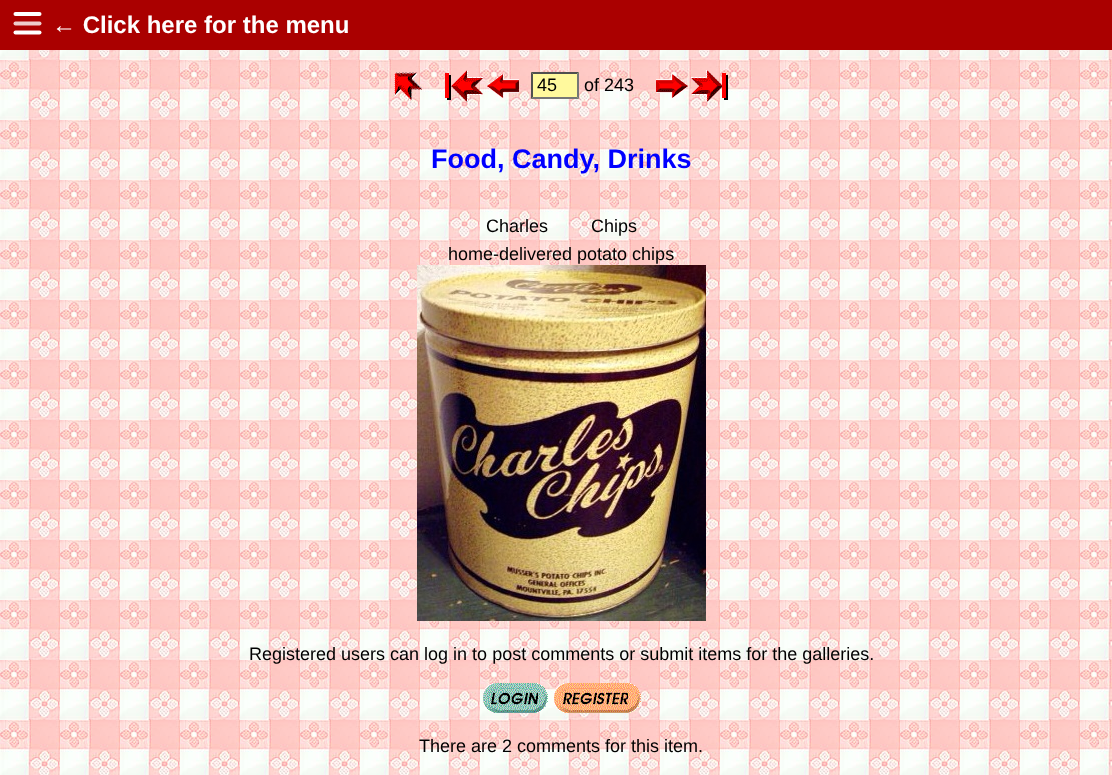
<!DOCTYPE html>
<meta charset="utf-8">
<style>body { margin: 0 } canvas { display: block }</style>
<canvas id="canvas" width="1112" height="775"></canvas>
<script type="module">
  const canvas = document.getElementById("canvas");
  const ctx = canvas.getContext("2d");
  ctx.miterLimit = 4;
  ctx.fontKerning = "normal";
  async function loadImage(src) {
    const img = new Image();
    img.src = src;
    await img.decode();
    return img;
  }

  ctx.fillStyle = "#ffffff";
  ctx.fillRect(0, 0, 1112, 775);
  ctx.drawImage(await loadImage("img1.png"), 0, 50, 1112, 725);
  ctx.fillStyle = "#aa0000";
  ctx.fillRect(0, 0, 1112, 50);
  ctx.beginPath();
  ctx.moveTo(15.5, 14);
  ctx.lineTo(39.5, 14);
  ctx.strokeStyle = "#ffffff";
  ctx.lineWidth = 4;
  ctx.lineCap = "round";
  ctx.stroke();
  ctx.beginPath();
  ctx.moveTo(15.5, 23.5);
  ctx.lineTo(39.5, 23.5);
  ctx.strokeStyle = "#eecccc";
  ctx.stroke();
  ctx.beginPath();
  ctx.moveTo(15.5, 32.5);
  ctx.lineTo(39.5, 32.5);
  ctx.strokeStyle = "#ffffff";
  ctx.stroke();
  ctx.font = "bold 24px Liberation Sans";
  ctx.fillStyle = "#ffffff";
  ctx.fillText("← Click here for the menu", 52, 33);
  ctx.drawImage(await loadImage("img2.png"), 394, 72, 29, 29);
  ctx.drawImage(await loadImage("img3.png"), 445, 70, 38, 32);
  ctx.drawImage(await loadImage("img4.png"), 487, 74, 32, 24);
  ctx.fillStyle = "#fff99d";
  ctx.fillRect(531, 72, 48, 27);
  ctx.fillStyle = "#4f4f4f";
  ctx.beginPath();
  ctx.moveTo(531, 72);
  ctx.lineTo(579, 72);
  ctx.lineTo(577, 74);
  ctx.lineTo(533, 74);
  ctx.closePath();
  ctx.fill();
  ctx.fillStyle = "#767676";
  ctx.beginPath();
  ctx.moveTo(579, 72);
  ctx.lineTo(579, 99);
  ctx.lineTo(577, 97);
  ctx.lineTo(577, 74);
  ctx.closePath();
  ctx.fill();
  ctx.beginPath();
  ctx.moveTo(579, 99);
  ctx.lineTo(531, 99);
  ctx.lineTo(533, 97);
  ctx.lineTo(577, 97);
  ctx.closePath();
  ctx.fill();
  ctx.fillStyle = "#4f4f4f";
  ctx.beginPath();
  ctx.moveTo(531, 99);
  ctx.lineTo(531, 72);
  ctx.lineTo(533, 74);
  ctx.lineTo(533, 97);
  ctx.closePath();
  ctx.fill();
  ctx.font = "18px Liberation Sans";
  ctx.fillStyle = "#000000";
  ctx.fillText("45", 537, 91);
  ctx.fillText("of 243", 584, 91);
  ctx.drawImage(await loadImage("img5.png"), 656, 74, 32, 24);
  ctx.drawImage(await loadImage("img6.png"), 691, 70, 37, 32);
  ctx.font = "bold 27px Liberation Sans";
  ctx.fillStyle = "#0000ff";
  ctx.fillText("Food, Candy, Drinks", 431, 168);
  ctx.wordSpacing = "38px";
  ctx.font = "18px Liberation Sans";
  ctx.fillStyle = "#000000";
  ctx.fillText("Charles Chips", 486, 232);
  ctx.wordSpacing = "0px";
  ctx.fillText("home-delivered potato chips", 448, 260);
  ctx.drawImage(await loadImage("img7.png"), 417, 265, 289, 356);
  ctx.fillText("Registered users can log in to post comments or submit items for the galleries.", 249, 660);
  ctx.drawImage(await loadImage("img8.png"), 483, 683, 65, 30);
  ctx.drawImage(await loadImage("img9.png"), 554, 683, 87, 30);
  ctx.fillText("There are 2 comments for this item.", 419, 752);
</script>
